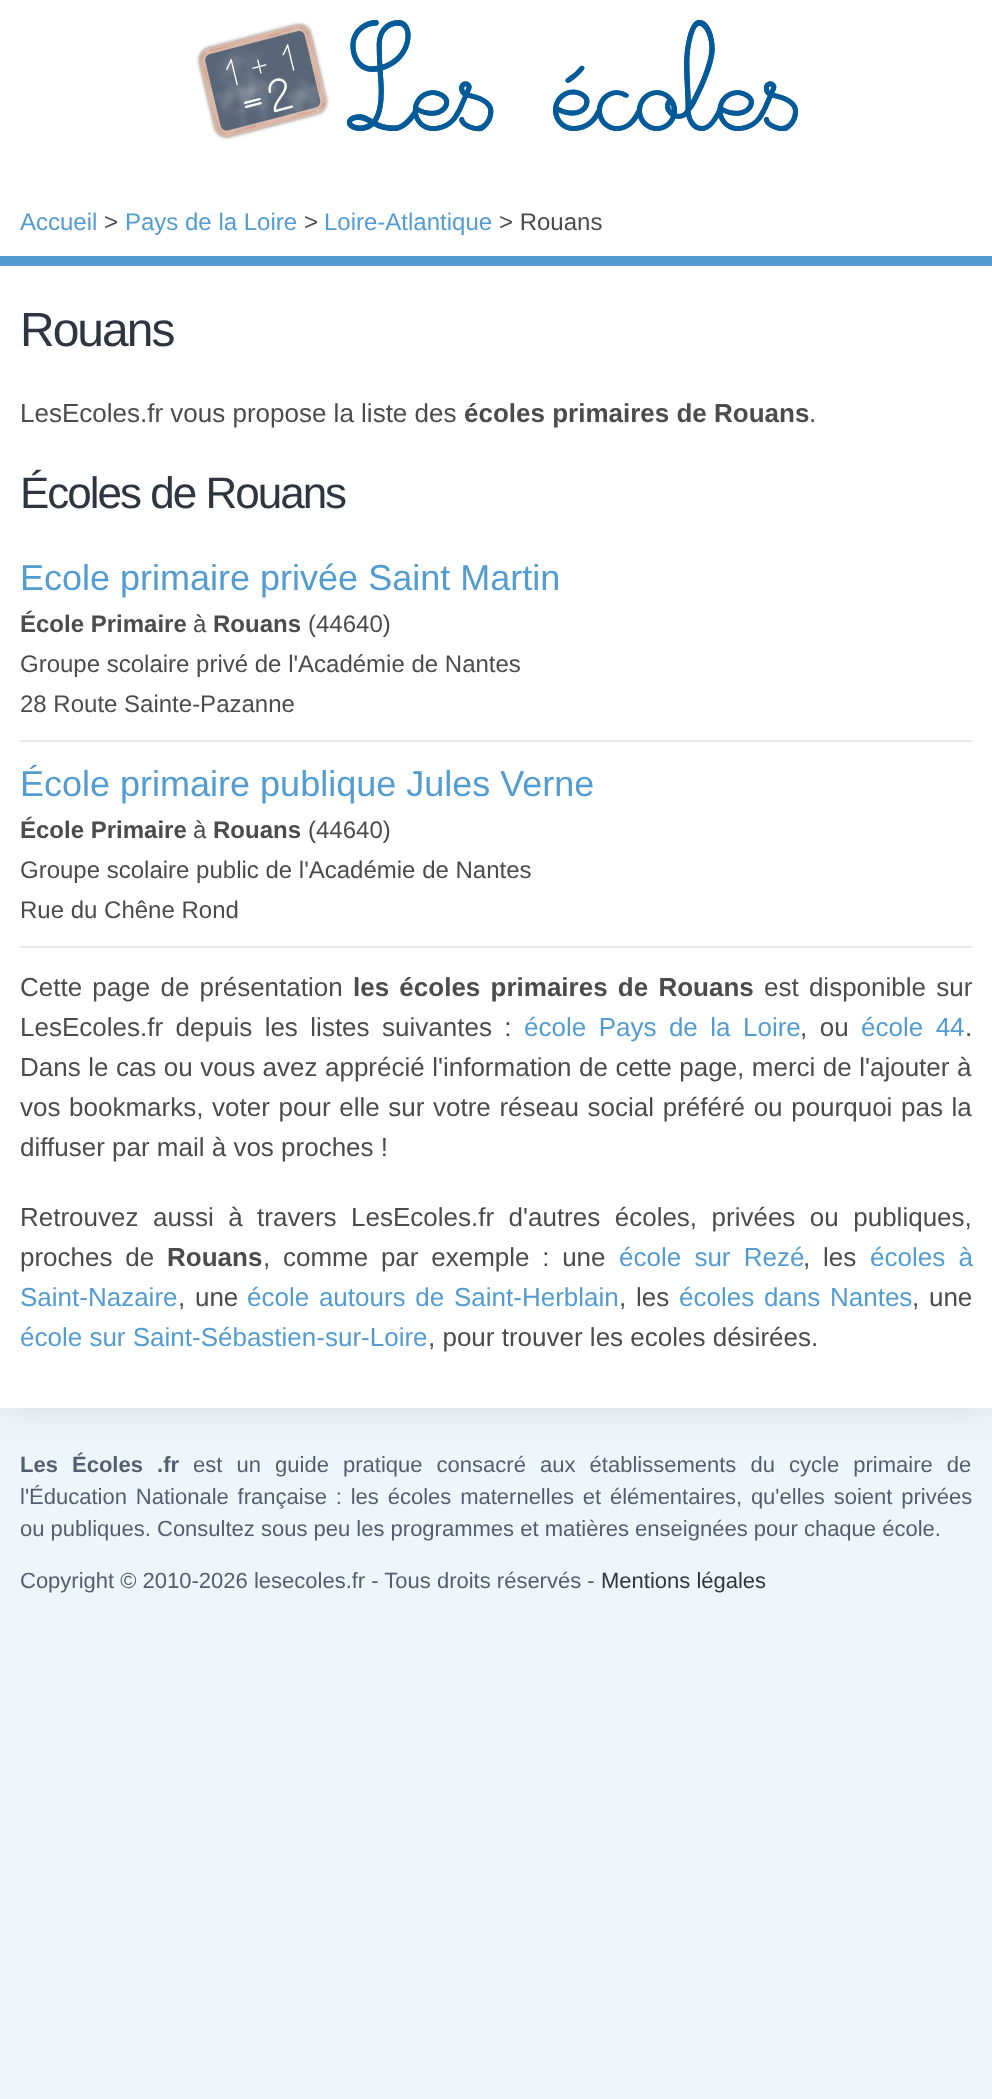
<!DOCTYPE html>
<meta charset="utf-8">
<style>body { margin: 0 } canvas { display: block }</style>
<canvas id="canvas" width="992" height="2099"></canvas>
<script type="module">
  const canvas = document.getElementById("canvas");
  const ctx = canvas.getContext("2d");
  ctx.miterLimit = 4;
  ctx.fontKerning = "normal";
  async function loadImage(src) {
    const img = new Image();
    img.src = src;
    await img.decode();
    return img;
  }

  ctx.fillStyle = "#eef6fb";
  ctx.fillRect(0, 0, 992, 2099);
  ctx.fillStyle = "rgba(0, 0, 0, 0.1)";
  ctx.filter = "blur(20px)";
  ctx.beginPath();
  ctx.rect(0, 0, 992, 1408);
  ctx.fill();
  ctx.filter = "none";
  ctx.fillStyle = "#ffffff";
  ctx.fillRect(0, 0, 992, 1408);
  ctx.fillStyle = "#539cd1";
  ctx.fillRect(0, 256, 992, 10);
  ctx.drawImage(await loadImage("img1.png"), 196, 20, 602, 120);
  ctx.font = "24px Liberation Sans";
  ctx.fillText("Accueil", 20, 230);
  ctx.fillStyle = "#4b4b4b";
  ctx.fillText(">", 104, 230);
  ctx.fillStyle = "#539cd1";
  ctx.fillText("Pays de la Loire", 125, 230);
  ctx.fillStyle = "#4b4b4b";
  ctx.fillText(">", 304, 230);
  ctx.fillStyle = "#539cd1";
  ctx.fillText("Loire-Atlantique", 324, 230);
  ctx.fillStyle = "#4b4b4b";
  ctx.fillText("> Rouans", 499, 230);
  ctx.letterSpacing = "-2px";
  ctx.font = "48px Liberation Sans";
  ctx.fillStyle = "#2f3540";
  ctx.fillText("Rouans", 20, 346);
  ctx.letterSpacing = "0px";
  ctx.font = "26px Liberation Sans";
  ctx.fillStyle = "#4b4b4b";
  ctx.fillText("LesEcoles.fr vous propose la liste des", 20, 422);
  ctx.font = "bold 26px Liberation Sans";
  ctx.fillText("écoles primaires de Rouans", 464, 422);
  ctx.font = "26px Liberation Sans";
  ctx.fillText(".", 809, 422);
  ctx.letterSpacing = "-2px";
  ctx.font = "44px Liberation Sans";
  ctx.fillStyle = "#2f3540";
  ctx.fillText("Écoles de Rouans", 20, 508);
  ctx.fillStyle = "#e9e9e9";
  ctx.fillRect(20, 740, 952, 2);
  ctx.letterSpacing = "0px";
  ctx.font = "36px Liberation Sans";
  ctx.fillStyle = "#539cd1";
  ctx.fillText("Ecole primaire privée Saint Martin", 20, 590);
  ctx.font = "bold 24px Liberation Sans";
  ctx.fillStyle = "#4b4b4b";
  ctx.fillText("École Primaire", 20, 632);
  ctx.font = "24px Liberation Sans";
  ctx.fillText("à", 193, 632);
  ctx.font = "bold 24px Liberation Sans";
  ctx.fillText("Rouans", 213, 632);
  ctx.font = "24px Liberation Sans";
  ctx.fillText("(44640)", 308, 632);
  ctx.fillText("Groupe scolaire privé de l'Académie de Nantes", 20, 672);
  ctx.fillText("28 Route Sainte-Pazanne", 20, 712);
  ctx.fillStyle = "#e9e9e9";
  ctx.fillRect(20, 946, 952, 2);
  ctx.font = "36px Liberation Sans";
  ctx.fillStyle = "#539cd1";
  ctx.fillText("École primaire publique Jules Verne", 20, 796);
  ctx.font = "bold 24px Liberation Sans";
  ctx.fillStyle = "#4b4b4b";
  ctx.fillText("École Primaire", 20, 838);
  ctx.font = "24px Liberation Sans";
  ctx.fillText("à", 193, 838);
  ctx.font = "bold 24px Liberation Sans";
  ctx.fillText("Rouans", 213, 838);
  ctx.font = "24px Liberation Sans";
  ctx.fillText("(44640)", 308, 838);
  ctx.fillText("Groupe scolaire public de l'Académie de Nantes", 20, 878);
  ctx.fillText("Rue du Chêne Rond", 20, 918);
  ctx.wordSpacing = "3px";
  ctx.font = "26px Liberation Sans";
  ctx.fillText("Cette page de présentation", 20, 996);
  ctx.font = "bold 26px Liberation Sans";
  ctx.fillText("les écoles primaires de Rouans", 353, 996);
  ctx.font = "26px Liberation Sans";
  ctx.fillText("est disponible sur", 764, 996);
  ctx.wordSpacing = "5.25px";
  ctx.fillText("LesEcoles.fr depuis les listes suivantes :", 20, 1036);
  ctx.fillStyle = "#539cd1";
  ctx.fillText("école Pays de la Loire", 524, 1036);
  ctx.fillStyle = "#4b4b4b";
  ctx.fillText(", ou", 800, 1036);
  ctx.fillStyle = "#539cd1";
  ctx.fillText("école 44", 861, 1036);
  ctx.wordSpacing = "0px";
  ctx.fillStyle = "#4b4b4b";
  ctx.fillText(".", 965, 1036);
  ctx.wordSpacing = "0.25px";
  ctx.fillText("Dans le cas ou vous avez apprécié l'information de cette page, merci de l'ajouter à", 20, 1076);
  ctx.wordSpacing = "1.4px";
  ctx.fillText("vos bookmarks, voter pour elle sur votre réseau social préféré ou pourquoi pas la", 20, 1116);
  ctx.wordSpacing = "0px";
  ctx.fillText("diffuser par mail à vos proches !", 20, 1156);
  ctx.wordSpacing = "7.25px";
  ctx.fillText("Retrouvez aussi à travers LesEcoles.fr d'autres écoles, privées ou publiques,", 20, 1226);
  ctx.wordSpacing = "5.5px";
  ctx.fillText("proches de", 20, 1266);
  ctx.wordSpacing = "0px";
  ctx.font = "bold 26px Liberation Sans";
  ctx.fillText("Rouans", 167, 1266);
  ctx.wordSpacing = "5.5px";
  ctx.font = "26px Liberation Sans";
  ctx.fillText(", comme par exemple : une", 263, 1266);
  ctx.wordSpacing = "6px";
  ctx.fillStyle = "#539cd1";
  ctx.fillText("école sur Rezé", 619, 1266);
  ctx.wordSpacing = "5.5px";
  ctx.fillStyle = "#4b4b4b";
  ctx.fillText(", les", 803, 1266);
  ctx.wordSpacing = "6px";
  ctx.fillStyle = "#539cd1";
  ctx.fillText("écoles à", 870, 1266);
  ctx.wordSpacing = "0px";
  ctx.fillText("Saint-Nazaire", 20, 1306);
  ctx.wordSpacing = "2.5px";
  ctx.fillStyle = "#4b4b4b";
  ctx.fillText(", une", 178, 1306);
  ctx.fillStyle = "#539cd1";
  ctx.fillText("école autours de Saint-Herblain", 247, 1306);
  ctx.fillStyle = "#4b4b4b";
  ctx.fillText(", les", 619, 1306);
  ctx.fillStyle = "#539cd1";
  ctx.fillText("écoles dans Nantes", 679, 1306);
  ctx.fillStyle = "#4b4b4b";
  ctx.fillText(", une", 912, 1306);
  ctx.wordSpacing = "0px";
  ctx.fillStyle = "#539cd1";
  ctx.fillText("école sur Saint-Sébastien-sur-Loire", 20, 1346);
  ctx.fillStyle = "#4b4b4b";
  ctx.fillText(", pour trouver les ecoles désirées.", 428, 1346);
  ctx.wordSpacing = "8px";
  ctx.font = "bold 22px Liberation Sans";
  ctx.fillStyle = "#525d70";
  ctx.fillText("Les Écoles .fr", 20, 1472);
  ctx.font = "22px Liberation Sans";
  ctx.fillText("est un guide pratique consacré aux établissements du cycle primaire de", 193, 1472);
  ctx.wordSpacing = "2.75px";
  ctx.fillText("l'Éducation Nationale française : les écoles maternelles et élémentaires, qu'elles soient privées", 20, 1504);
  ctx.wordSpacing = "0px";
  ctx.fillText("ou publiques. Consultez sous peu les programmes et matières enseignées pour chaque école.", 20, 1536);
  ctx.fillText("Copyright © 2010-2026 lesecoles.fr - Tous droits réservés -", 20, 1588);
  ctx.fillStyle = "#2f3540";
  ctx.fillText("Mentions légales", 601, 1588);
</script>
